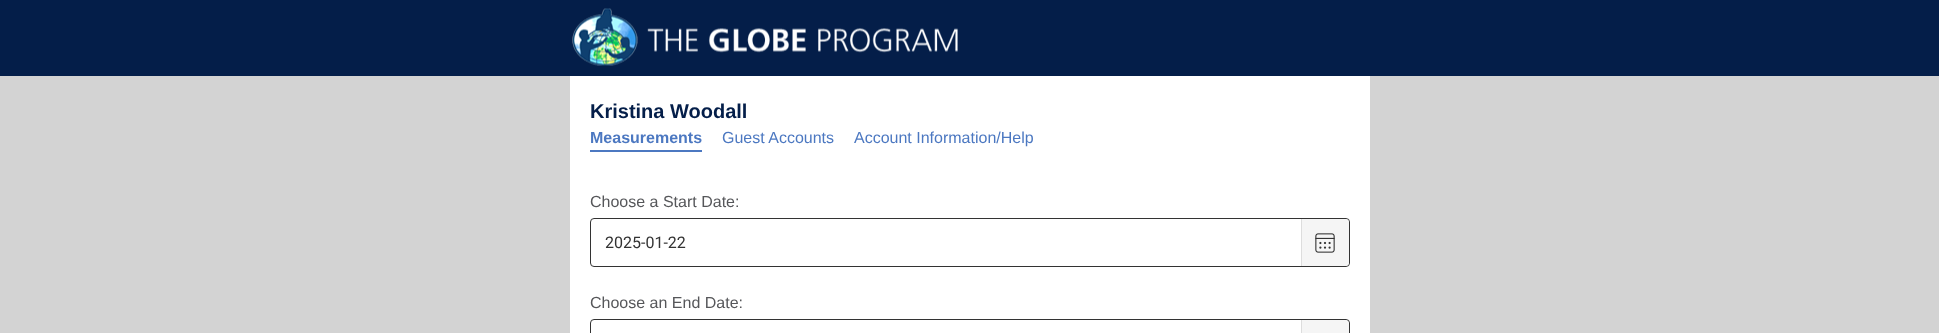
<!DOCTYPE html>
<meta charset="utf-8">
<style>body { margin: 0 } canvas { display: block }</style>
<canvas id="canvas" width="1939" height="333"></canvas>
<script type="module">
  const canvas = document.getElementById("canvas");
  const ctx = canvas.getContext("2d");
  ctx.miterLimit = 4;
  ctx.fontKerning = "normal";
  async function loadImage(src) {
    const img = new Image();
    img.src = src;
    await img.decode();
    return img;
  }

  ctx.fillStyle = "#d3d3d3";
  ctx.fillRect(0, 0, 1939, 333);
  ctx.fillStyle = "#041e49";
  ctx.fillRect(0, 0, 1939, 76);
  ctx.drawImage(await loadImage("img1.png"), 572, 8, 386, 58);
  ctx.fillStyle = "#ffffff";
  ctx.fillRect(570, 76, 800, 257);
  ctx.font = "bold 20px Liberation Sans";
  ctx.fillStyle = "#041e49";
  ctx.fillText("Kristina Woodall", 590, 118);
  ctx.font = "bold 16px Liberation Sans";
  ctx.fillStyle = "#4c78c1";
  ctx.fillText("Measurements", 590, 143);
  ctx.fillRect(590, 150, 112, 2);
  ctx.font = "16px Liberation Sans";
  ctx.fillText("Guest Accounts", 722, 143);
  ctx.fillText("Account Information/Help", 854, 143);
  ctx.fillStyle = "#56575a";
  ctx.fillText("Choose a Start Date:", 590, 207);
  ctx.beginPath();
  ctx.roundRect(590.5, 218.5, 759, 48, 3.5);
  ctx.strokeStyle = "#333333";
  ctx.stroke();
  ctx.font = "16px Roboto";
  ctx.fillStyle = "#333333";
  ctx.fillText("2025-01-22", 605, 248);
  ctx.fillStyle = "#f5f5f5";
  ctx.beginPath();
  ctx.roundRect(1301, 219, 48, 47, [0, 4, 4, 0]);
  ctx.fill();
  ctx.fillStyle = "#dddddd";
  ctx.fillRect(1301, 219, 1, 47);
  ctx.drawImage(await loadImage("img2.png"), 1315, 233, 20, 20);
  ctx.font = "16px Liberation Sans";
  ctx.fillStyle = "#56575a";
  ctx.fillText("Choose an End Date:", 590, 308);
  ctx.beginPath();
  ctx.roundRect(590.5, 319.5, 759, 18, 3.5);
  ctx.stroke();
  ctx.fillStyle = "#f5f5f5";
  ctx.beginPath();
  ctx.moveTo(1301, 320);
  ctx.lineTo(1345, 320);
  ctx.bezierCurveTo(1347, 320, 1349, 322, 1349, 324);
  ctx.lineTo(1349, 333);
  ctx.bezierCurveTo(1349, 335, 1347, 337, 1345, 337);
  ctx.lineTo(1301, 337);
  ctx.closePath();
  ctx.fill();
  ctx.fillStyle = "#dddddd";
  ctx.fillRect(1301, 320, 1, 13);
</script>
